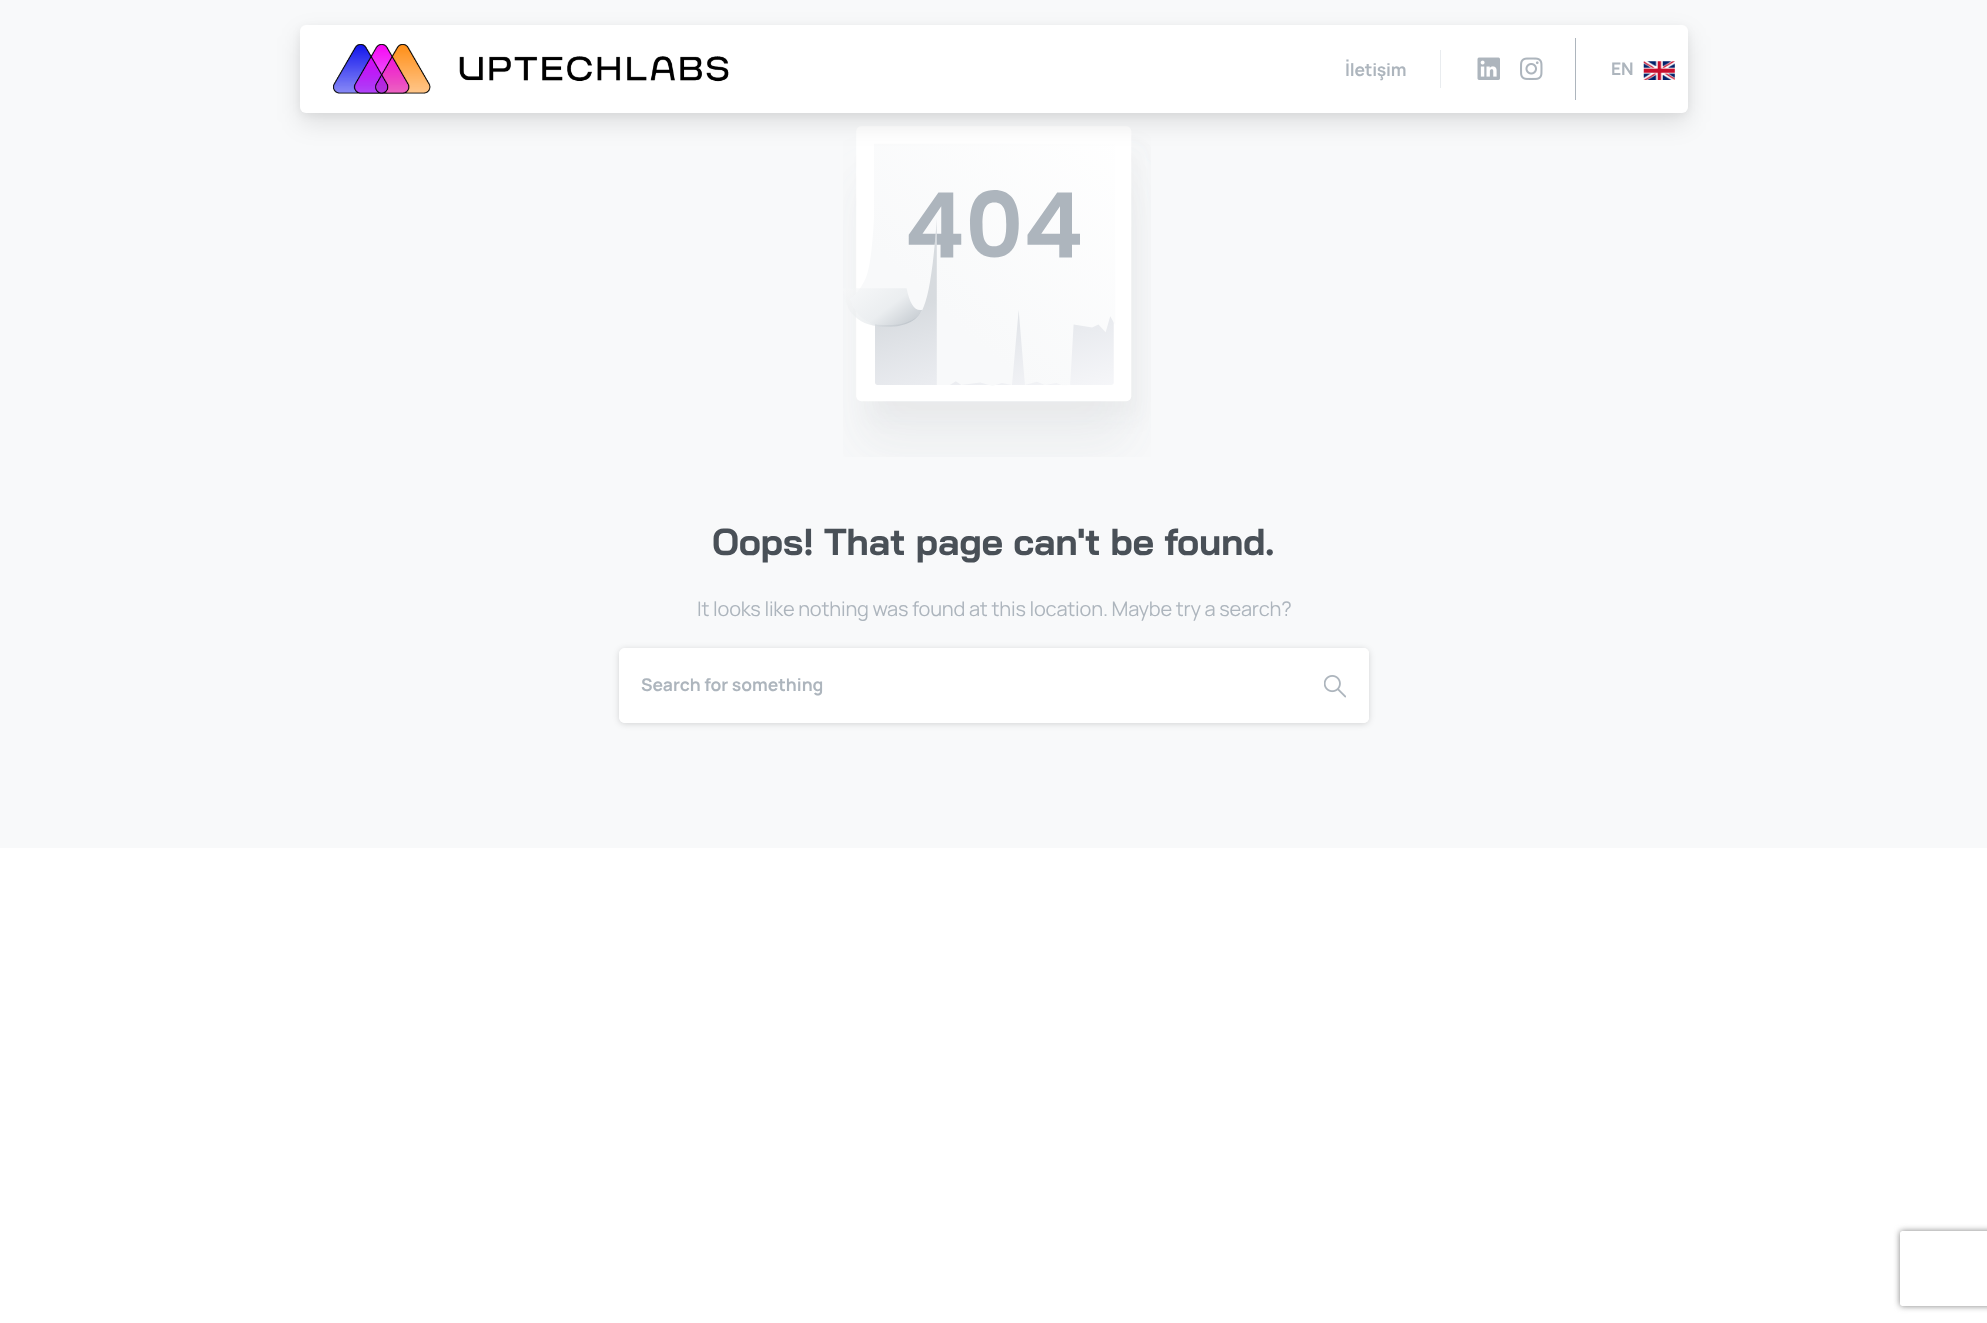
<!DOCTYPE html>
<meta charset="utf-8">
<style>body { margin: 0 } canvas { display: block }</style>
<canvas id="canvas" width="1987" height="1323"></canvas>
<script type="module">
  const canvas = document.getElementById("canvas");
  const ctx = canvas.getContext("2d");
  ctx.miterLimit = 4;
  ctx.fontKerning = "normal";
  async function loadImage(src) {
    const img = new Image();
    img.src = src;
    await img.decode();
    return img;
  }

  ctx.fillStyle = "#ffffff";
  ctx.fillRect(0, 0, 1987, 1323);
  ctx.fillStyle = "#f8f9fa";
  ctx.fillRect(0, 0, 1987, 848);
  ctx.drawImage(await loadImage("img5.png"), 843, 126, 308, 331);
  ctx.fillStyle = "rgba(0, 0, 0, 0.1)";
  ctx.filter = "blur(12px)";
  ctx.beginPath();
  ctx.roundRect(300, 35, 1388, 88, 6);
  ctx.fill();
  ctx.filter = "none";
  ctx.fillStyle = "rgba(0, 0, 0, 0.05)";
  ctx.filter = "blur(4px)";
  ctx.beginPath();
  ctx.roundRect(300, 28, 1388, 87, 6);
  ctx.fill();
  ctx.filter = "none";
  ctx.fillStyle = "#ffffff";
  ctx.beginPath();
  ctx.roundRect(300, 25, 1388, 88, 6);
  ctx.fill();
  ctx.drawImage(await loadImage("img1.png"), 333, 44, 396, 50);
  ctx.letterSpacing = "-0.2px";
  ctx.font = "bold 17.5px Manrope";
  ctx.fillStyle = "#adb5bd";
  ctx.fillText("İletişim", 1345, 76);
  ctx.fillStyle = "#e9ecef";
  ctx.fillRect(1440, 50, 1, 38);
  ctx.drawImage(await loadImage("img2.png"), 1477, 57, 23, 23);
  ctx.drawImage(await loadImage("img3.png"), 1520, 57, 23, 23);
  ctx.fillStyle = "#adb5bd";
  ctx.fillRect(1575, 38, 1, 62);
  ctx.fillText("EN", 1611, 75);
  ctx.drawImage(await loadImage("img4.png"), 1643, 61, 32, 19);
  ctx.letterSpacing = "-0.4px";
  ctx.font = "bold 37.5px Bai Jamjuree";
  ctx.fillStyle = "#495057";
  ctx.fillText("Oops! That page can't be found.", 712, 555);
  ctx.letterSpacing = "-0.2px";
  ctx.font = "20px Manrope";
  ctx.fillStyle = "#adb5bd";
  ctx.fillText("It looks like nothing was found at this location. Maybe try a search?", 697, 616);
  ctx.fillStyle = "rgba(0, 0, 0, 0.15)";
  ctx.filter = "blur(3px)";
  ctx.beginPath();
  ctx.roundRect(619, 649, 750, 75, 6);
  ctx.fill();
  ctx.filter = "none";
  ctx.fillStyle = "#ffffff";
  ctx.beginPath();
  ctx.roundRect(619, 648, 750, 75, 6);
  ctx.fill();
  ctx.beginPath();
  ctx.roundRect(619, 648, 682, 75, 6);
  ctx.fill();
  ctx.letterSpacing = "0px";
  ctx.font = "bold 17.5px Manrope";
  ctx.fillStyle = "#adb5bd";
  ctx.fillText("Search for something", 641, 691);
  ctx.fillStyle = "#ffffff";
  ctx.beginPath();
  ctx.roundRect(1301, 648, 68, 75, [0, 5, 5, 0]);
  ctx.fill();
  ctx.drawImage(await loadImage("img6.png"), 1324, 675, 22, 23);
  ctx.save();
  ctx.beginPath();
  ctx.moveTo(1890, 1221);
  ctx.lineTo(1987, 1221);
  ctx.lineTo(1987, 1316);
  ctx.lineTo(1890, 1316);
  ctx.closePath();
  ctx.moveTo(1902.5, 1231);
  ctx.lineTo(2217.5, 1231);
  ctx.bezierCurveTo(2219, 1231, 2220, 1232, 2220, 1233.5);
  ctx.lineTo(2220, 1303.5);
  ctx.bezierCurveTo(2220, 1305, 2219, 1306, 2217.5, 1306);
  ctx.lineTo(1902.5, 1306);
  ctx.bezierCurveTo(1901, 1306, 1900, 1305, 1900, 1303.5);
  ctx.lineTo(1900, 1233.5);
  ctx.bezierCurveTo(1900, 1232, 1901, 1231, 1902.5, 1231);
  ctx.closePath();
  ctx.clip("evenodd");
  ctx.fillStyle = "#808080";
  ctx.filter = "blur(3px)";
  ctx.beginPath();
  ctx.roundRect(1900, 1231, 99, 75, 2.5);
  ctx.fill();
  ctx.filter = "none";
  ctx.restore();
</script>
